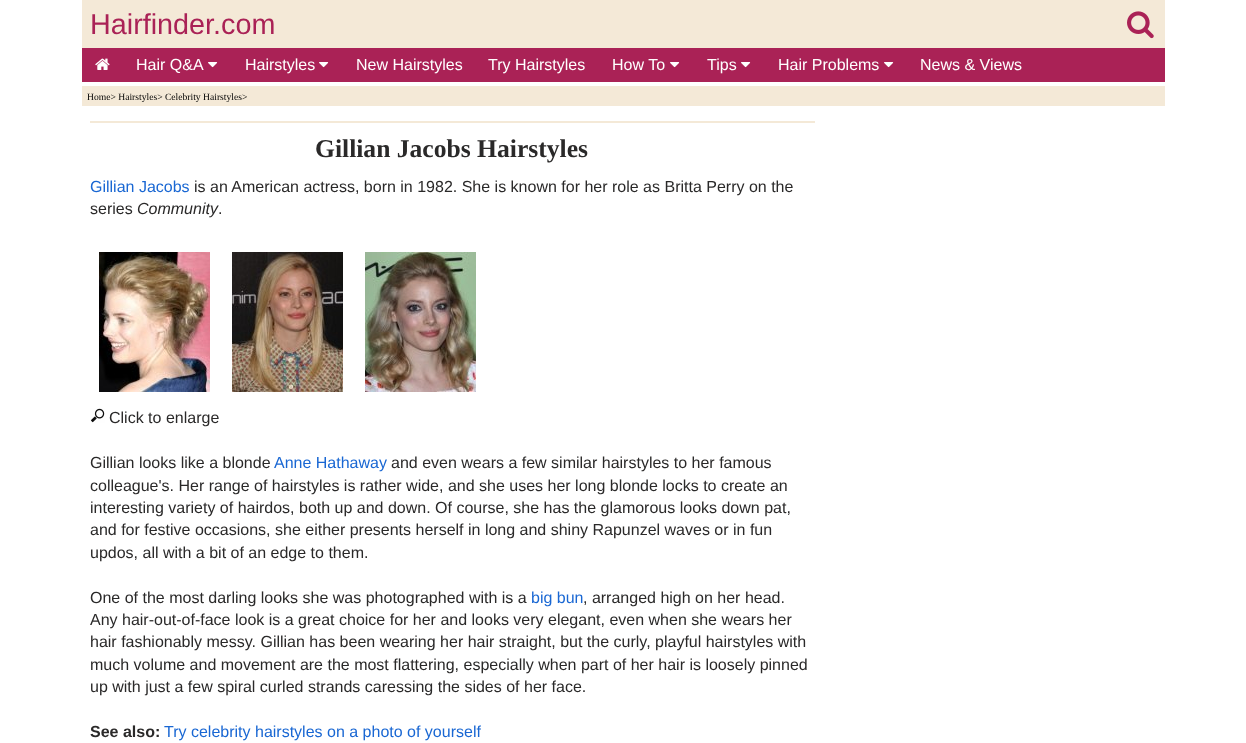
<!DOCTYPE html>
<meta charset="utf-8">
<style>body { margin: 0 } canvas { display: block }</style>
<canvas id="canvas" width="1246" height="743"></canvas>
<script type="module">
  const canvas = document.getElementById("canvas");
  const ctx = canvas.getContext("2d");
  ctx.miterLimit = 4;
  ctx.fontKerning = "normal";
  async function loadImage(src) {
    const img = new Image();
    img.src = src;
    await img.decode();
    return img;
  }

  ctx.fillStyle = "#ffffff";
  ctx.fillRect(0, 0, 1246, 743);
  ctx.fillStyle = "#f4e9d7";
  ctx.fillRect(82, 0, 1083, 48);
  ctx.font = "28.75px Liberation Sans";
  ctx.fillStyle = "#aa2256";
  ctx.fillText("Hairfinder.com", 90, 34);
  ctx.drawImage(await loadImage("img1.png"), 1127, 11, 27, 28);
  ctx.fillRect(82, 48, 1083, 34);
  ctx.drawImage(await loadImage("img2.png"), 95, 58, 15, 12);
  ctx.font = "16px Liberation Sans";
  ctx.fillStyle = "#ffffff";
  ctx.fillText("Hair Q&A", 136, 70);
  ctx.drawImage(await loadImage("img3.png"), 208, 62, 10, 6);
  ctx.fillText("Hairstyles", 245, 70);
  ctx.drawImage(await loadImage("img3.png"), 319, 62, 10, 6);
  ctx.fillText("New Hairstyles", 356, 70);
  ctx.fillText("Try Hairstyles", 488, 70);
  ctx.fillText("How To", 612, 70);
  ctx.drawImage(await loadImage("img3.png"), 670, 62, 10, 6);
  ctx.fillText("Tips", 707, 70);
  ctx.drawImage(await loadImage("img3.png"), 741, 62, 10, 6);
  ctx.fillText("Hair Problems", 778, 70);
  ctx.drawImage(await loadImage("img3.png"), 884, 62, 10, 6);
  ctx.fillText("News & Views", 920, 70);
  ctx.fillStyle = "#f4e9d7";
  ctx.fillRect(82, 86, 1083, 20);
  ctx.font = "9.6px Liberation Serif";
  ctx.fillStyle = "#000000";
  ctx.fillText("Home> Hairstyles> Celebrity Hairstyles>", 87, 100);
  ctx.fillStyle = "#f4e9d7";
  ctx.fillRect(90, 121, 725, 2);
  ctx.font = "bold 25.6px Liberation Serif";
  ctx.fillStyle = "#2a2929";
  ctx.fillText("Gillian Jacobs Hairstyles", 315, 157);
  ctx.font = "16px Liberation Sans";
  ctx.fillStyle = "#1967d3";
  ctx.fillText("Gillian Jacobs", 90, 192);
  ctx.fillStyle = "#2a2929";
  ctx.fillText("is an American actress, born in 1982. She is known for her role as Britta Perry on the", 194, 192);
  ctx.fillText("series", 90, 214);
  ctx.font = "italic 16px Liberation Sans";
  ctx.fillText("Community", 137, 214);
  ctx.font = "16px Liberation Sans";
  ctx.fillText(".", 218, 214);
  ctx.drawImage(await loadImage("img4.png"), 99, 252, 111, 140);
  ctx.drawImage(await loadImage("img5.png"), 232, 252, 111, 140);
  ctx.drawImage(await loadImage("img6.png"), 365, 252, 111, 140);
  ctx.drawImage(await loadImage("img7.png"), 90, 408, 15, 15);
  ctx.fillText("Click to enlarge", 109, 423);
  ctx.fillText("Gillian looks like a blonde", 90, 468);
  ctx.fillStyle = "#1967d3";
  ctx.fillText("Anne Hathaway", 274, 468);
  ctx.fillStyle = "#2a2929";
  ctx.fillText("and even wears a few similar hairstyles to her famous", 391, 468);
  ctx.fillText("colleague's. Her range of hairstyles is rather wide, and she uses her long blonde locks to create an", 90, 491);
  ctx.fillText("interesting variety of hairdos, both up and down. Of course, she has the glamorous looks down pat,", 90, 513);
  ctx.fillText("and for festive occasions, she either presents herself in long and shiny Rapunzel waves or in fun", 90, 535);
  ctx.fillText("updos, all with a bit of an edge to them.", 90, 558);
  ctx.fillText("One of the most darling looks she was photographed with is a", 90, 603);
  ctx.fillStyle = "#1967d3";
  ctx.fillText("big bun", 531, 603);
  ctx.fillStyle = "#2a2929";
  ctx.fillText(", arranged high on her head.", 583, 603);
  ctx.fillText("Any hair-out-of-face look is a great choice for her and looks very elegant, even when she wears her", 90, 625);
  ctx.fillText("hair fashionably messy. Gillian has been wearing her hair straight, but the curly, playful hairstyles with", 90, 647);
  ctx.fillText("much volume and movement are the most flattering, especially when part of her hair is loosely pinned", 90, 670);
  ctx.fillText("up with just a few spiral curled strands caressing the sides of her face.", 90, 692);
  ctx.font = "bold 16px Liberation Sans";
  ctx.fillText("See also:", 90, 737);
  ctx.font = "16px Liberation Sans";
  ctx.fillStyle = "#1967d3";
  ctx.fillText("Try celebrity hairstyles on a photo of yourself", 164, 737);
</script>
